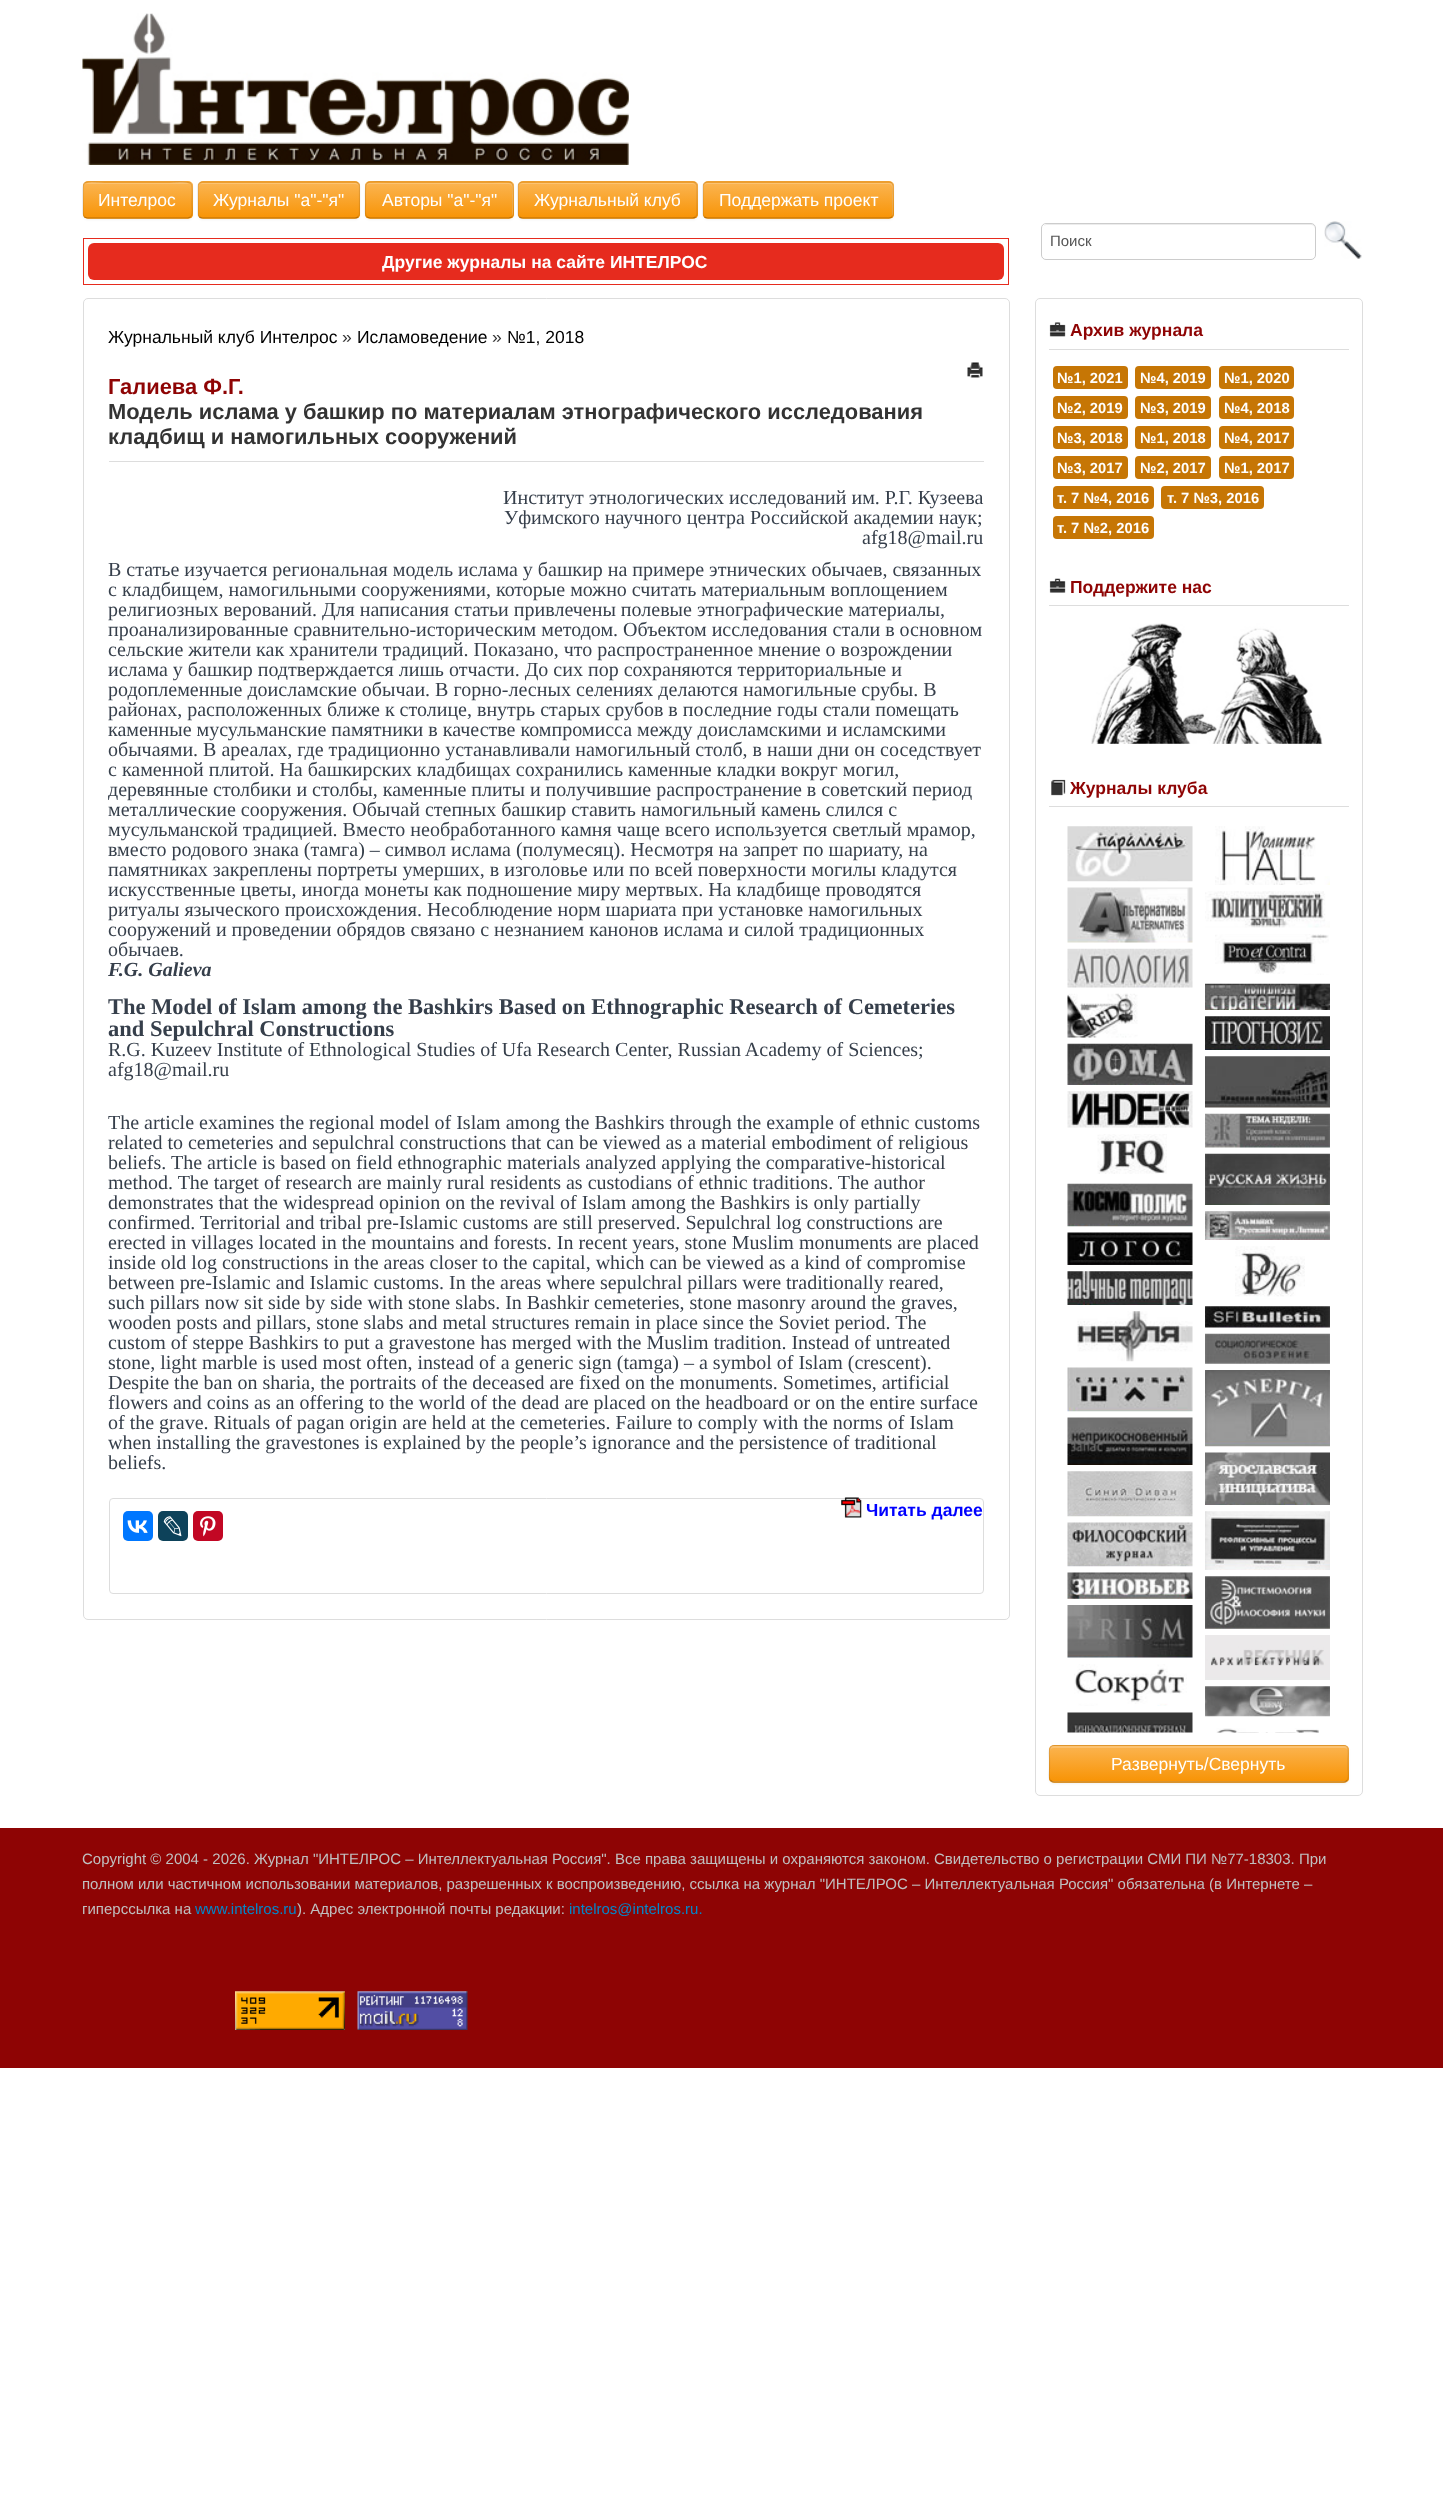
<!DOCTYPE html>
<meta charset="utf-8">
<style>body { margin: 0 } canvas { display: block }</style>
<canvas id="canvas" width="1443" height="2510"></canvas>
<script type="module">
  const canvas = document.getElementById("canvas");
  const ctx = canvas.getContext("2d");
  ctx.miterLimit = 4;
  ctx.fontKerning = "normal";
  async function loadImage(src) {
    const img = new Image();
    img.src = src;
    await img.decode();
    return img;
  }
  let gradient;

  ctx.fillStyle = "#ffffff";
  ctx.fillRect(0, 0, 1443, 2510);
  ctx.drawImage(await loadImage("img1.png"), 82, 13, 547, 152);
  ctx.fillStyle = "rgba(0, 0, 0, 0.05)";
  ctx.filter = "blur(1px)";
  ctx.beginPath();
  ctx.roundRect(83, 183, 110, 37, 5);
  ctx.fill();
  ctx.filter = "none";
  ctx.fillStyle = "#faa732";
  ctx.beginPath();
  ctx.roundRect(83, 181, 110, 38, 5);
  ctx.fill();
  ctx.save();
  ctx.beginPath();
  ctx.roundRect(83, 181, 110, 38, 5);
  ctx.clip();
  gradient = ctx.createLinearGradient(138, 183, 138, 218);
  gradient.addColorStop(0, "#fbb450");
  gradient.addColorStop(1, "#f89406");
  ctx.fillStyle = gradient;
  ctx.fillRect(83, 183, 110, 35);
  ctx.restore();
  ctx.fillStyle = "rgba(255, 255, 255, 0.2)";
  ctx.beginPath();
  ctx.moveTo(88, 184);
  ctx.lineTo(188, 184);
  ctx.bezierCurveTo(190, 184, 191, 185, 191, 188);
  ctx.bezierCurveTo(191, 179, 174, 183, 170, 183);
  ctx.lineTo(104, 183);
  ctx.bezierCurveTo(101, 183, 84, 179, 84, 188);
  ctx.bezierCurveTo(84, 185, 85, 184, 88, 184);
  ctx.closePath();
  ctx.fill();
  ctx.beginPath();
  ctx.moveTo(190.5, 217);
  ctx.lineTo(188, 218);
  ctx.lineTo(87, 218);
  ctx.lineTo(84.5, 217);
  ctx.strokeStyle = "rgba(0, 0, 0, 0.25)";
  ctx.lineWidth = 1.2;
  ctx.stroke();
  ctx.beginPath();
  ctx.moveTo(84.5, 217);
  ctx.bezierCurveTo(82.5, 215, 83, 211.5, 83, 209);
  ctx.lineTo(83, 200);
  ctx.bezierCurveTo(83, 178, 80.5, 182, 104, 182);
  ctx.lineTo(171, 182);
  ctx.bezierCurveTo(196.5, 182, 192, 179, 192, 204.5);
  ctx.bezierCurveTo(192, 207.5, 193.5, 214, 190.5, 217);
  ctx.strokeStyle = "rgba(0, 0, 0, 0.1)";
  ctx.stroke();
  ctx.font = "17.5px Liberation Sans";
  ctx.fillStyle = "#ffffff";
  ctx.fillText("Интелрос", 98, 206);
  ctx.fillStyle = "rgba(0, 0, 0, 0.05)";
  ctx.filter = "blur(1px)";
  ctx.beginPath();
  ctx.roundRect(198, 183, 162, 37, 5);
  ctx.fill();
  ctx.filter = "none";
  ctx.fillStyle = "#faa732";
  ctx.beginPath();
  ctx.roundRect(198, 181, 162, 38, 5);
  ctx.fill();
  ctx.save();
  ctx.beginPath();
  ctx.roundRect(198, 181, 162, 38, 5);
  ctx.clip();
  gradient = ctx.createLinearGradient(279, 183, 279, 218);
  gradient.addColorStop(0, "#fbb450");
  gradient.addColorStop(1, "#f89406");
  ctx.fillStyle = gradient;
  ctx.fillRect(198, 183, 162, 35);
  ctx.restore();
  ctx.fillStyle = "#fcc372";
  ctx.beginPath();
  ctx.moveTo(202, 184);
  ctx.lineTo(355, 184);
  ctx.bezierCurveTo(357, 184, 359, 185, 359, 188);
  ctx.bezierCurveTo(359, 186, 358, 184, 356, 183);
  ctx.lineTo(202, 183);
  ctx.bezierCurveTo(200, 184, 199, 186, 199, 188);
  ctx.bezierCurveTo(199, 185, 200, 184, 202, 184);
  ctx.closePath();
  ctx.fill();
  ctx.beginPath();
  ctx.moveTo(358, 217);
  ctx.bezierCurveTo(357.5, 217.5, 356, 218, 355, 218);
  ctx.lineTo(202.5, 218);
  ctx.bezierCurveTo(201.5, 218, 200, 217.5, 199.5, 217);
  ctx.strokeStyle = "rgba(0, 0, 0, 0.25)";
  ctx.stroke();
  ctx.beginPath();
  ctx.moveTo(199.5, 217);
  ctx.bezierCurveTo(198.5, 216, 198, 215, 198, 214);
  ctx.lineTo(198, 186);
  ctx.bezierCurveTo(198, 185, 198.5, 184, 199.5, 183);
  ctx.bezierCurveTo(200, 182.5, 201.5, 182, 202.5, 182);
  ctx.lineTo(355, 182);
  ctx.bezierCurveTo(356, 182, 357.5, 182.5, 358, 183);
  ctx.bezierCurveTo(359, 184, 359.5, 185, 359.5, 186);
  ctx.lineTo(359.5, 214);
  ctx.bezierCurveTo(359.5, 215, 359, 216, 358, 217);
  ctx.strokeStyle = "rgba(0, 0, 0, 0.1)";
  ctx.stroke();
  ctx.fillStyle = "#ffffff";
  ctx.fillText("Журналы \"а\"-\"я\"", 213, 206);
  ctx.fillStyle = "rgba(0, 0, 0, 0.05)";
  ctx.filter = "blur(1px)";
  ctx.beginPath();
  ctx.roundRect(365, 183, 149, 37, 5);
  ctx.fill();
  ctx.filter = "none";
  ctx.fillStyle = "#faa732";
  ctx.beginPath();
  ctx.roundRect(365, 181, 149, 38, 5);
  ctx.fill();
  ctx.save();
  ctx.beginPath();
  ctx.roundRect(365, 181, 149, 38, 5);
  ctx.clip();
  gradient = ctx.createLinearGradient(439, 183, 439, 218);
  gradient.addColorStop(0, "#fbb450");
  gradient.addColorStop(1, "#f89406");
  ctx.fillStyle = gradient;
  ctx.fillRect(365, 183, 149, 35);
  ctx.restore();
  ctx.fillStyle = "rgba(255, 255, 255, 0.2)";
  ctx.beginPath();
  ctx.moveTo(370, 184);
  ctx.lineTo(509, 184);
  ctx.bezierCurveTo(514, 184, 512, 194, 512, 197);
  ctx.lineTo(512, 217);
  ctx.bezierCurveTo(512, 216, 513, 215, 513, 214);
  ctx.lineTo(513, 187);
  ctx.bezierCurveTo(513, 185, 511, 183, 509, 183);
  ctx.lineTo(370, 183);
  ctx.bezierCurveTo(368, 183, 366, 185, 366, 187);
  ctx.lineTo(366, 188);
  ctx.bezierCurveTo(366, 185, 368, 184, 370, 184);
  ctx.closePath();
  ctx.fill();
  ctx.beginPath();
  ctx.moveTo(512, 217);
  ctx.lineTo(509, 218);
  ctx.lineTo(393, 218);
  ctx.lineTo(370, 218);
  ctx.lineTo(367, 217);
  ctx.strokeStyle = "rgba(0, 0, 0, 0.25)";
  ctx.stroke();
  ctx.beginPath();
  ctx.moveTo(367, 217);
  ctx.bezierCurveTo(364, 214, 365.5, 207.5, 365.5, 204.5);
  ctx.bezierCurveTo(365.5, 176.5, 361.5, 182, 393, 182);
  ctx.lineTo(485.5, 182);
  ctx.bezierCurveTo(517.5, 182, 513, 176.5, 513, 204.5);
  ctx.bezierCurveTo(513, 207.5, 514.5, 214, 512, 217);
  ctx.strokeStyle = "rgba(0, 0, 0, 0.1)";
  ctx.stroke();
  ctx.fillStyle = "#ffffff";
  ctx.fillText("Авторы \"а\"-\"я\"", 382, 206);
  ctx.fillStyle = "rgba(0, 0, 0, 0.05)";
  ctx.filter = "blur(1px)";
  ctx.beginPath();
  ctx.roundRect(518, 183, 180, 37, 5);
  ctx.fill();
  ctx.filter = "none";
  ctx.fillStyle = "#faa732";
  ctx.beginPath();
  ctx.roundRect(518, 181, 180, 38, 5);
  ctx.fill();
  ctx.save();
  ctx.beginPath();
  ctx.roundRect(518, 181, 180, 38, 5);
  ctx.clip();
  gradient = ctx.createLinearGradient(608, 183, 608, 218);
  gradient.addColorStop(0, "#fbb450");
  gradient.addColorStop(1, "#f89406");
  ctx.fillStyle = gradient;
  ctx.fillRect(518, 183, 180, 35);
  ctx.restore();
  ctx.fillStyle = "#fcc372";
  ctx.beginPath();
  ctx.moveTo(522, 184);
  ctx.lineTo(692, 184);
  ctx.bezierCurveTo(695, 184, 696, 185, 696, 188);
  ctx.lineTo(696, 187);
  ctx.bezierCurveTo(696, 185, 694, 183, 692, 183);
  ctx.lineTo(523, 183);
  ctx.bezierCurveTo(521, 183, 519, 185, 519, 187);
  ctx.lineTo(519, 188);
  ctx.bezierCurveTo(519, 185, 520, 184, 522, 184);
  ctx.closePath();
  ctx.fill();
  ctx.beginPath();
  ctx.moveTo(695.5, 217);
  ctx.bezierCurveTo(695, 217.5, 693.5, 218, 692.5, 218);
  ctx.lineTo(522.5, 218);
  ctx.bezierCurveTo(521.5, 218, 520, 217.5, 519.5, 217);
  ctx.strokeStyle = "rgba(0, 0, 0, 0.25)";
  ctx.stroke();
  ctx.beginPath();
  ctx.moveTo(519.5, 217);
  ctx.bezierCurveTo(518.5, 216, 518, 215, 518, 214);
  ctx.lineTo(518, 186);
  ctx.bezierCurveTo(518, 185, 518.5, 184, 519.5, 183);
  ctx.bezierCurveTo(520, 182.5, 521.5, 182, 522.5, 182);
  ctx.lineTo(692.5, 182);
  ctx.bezierCurveTo(693.5, 182, 695, 182.5, 695.5, 183);
  ctx.bezierCurveTo(696.5, 184, 697, 185, 697, 186);
  ctx.lineTo(697, 214);
  ctx.bezierCurveTo(697, 215, 696.5, 216, 695.5, 217);
  ctx.strokeStyle = "rgba(0, 0, 0, 0.1)";
  ctx.stroke();
  ctx.fillStyle = "#ffffff";
  ctx.fillText("Журнальный клуб", 534, 206);
  ctx.fillStyle = "rgba(0, 0, 0, 0.05)";
  ctx.filter = "blur(1px)";
  ctx.beginPath();
  ctx.roundRect(703, 183, 191, 37, 5);
  ctx.fill();
  ctx.filter = "none";
  ctx.fillStyle = "#faa732";
  ctx.beginPath();
  ctx.roundRect(703, 181, 191, 38, 5);
  ctx.fill();
  ctx.save();
  ctx.beginPath();
  ctx.roundRect(703, 181, 191, 38, 5);
  ctx.clip();
  gradient = ctx.createLinearGradient(798, 183, 798, 218);
  gradient.addColorStop(0, "#fbb450");
  gradient.addColorStop(1, "#f89406");
  ctx.fillStyle = gradient;
  ctx.fillRect(703, 183, 191, 35);
  ctx.restore();
  ctx.fillStyle = "rgba(255, 255, 255, 0.2)";
  ctx.beginPath();
  ctx.moveTo(708, 184);
  ctx.lineTo(889, 184);
  ctx.bezierCurveTo(894, 184, 892, 194, 892, 197);
  ctx.lineTo(892, 217);
  ctx.bezierCurveTo(892, 216, 893, 215, 893, 214);
  ctx.lineTo(893, 187);
  ctx.bezierCurveTo(893, 185, 891, 183, 889, 183);
  ctx.lineTo(708, 183);
  ctx.bezierCurveTo(706, 183, 704, 185, 704, 187);
  ctx.lineTo(704, 188);
  ctx.bezierCurveTo(704, 185, 705, 184, 708, 184);
  ctx.closePath();
  ctx.fill();
  ctx.beginPath();
  ctx.moveTo(892, 217);
  ctx.bezierCurveTo(891, 217.5, 890, 218, 889, 218);
  ctx.lineTo(707.5, 218);
  ctx.bezierCurveTo(706.5, 218, 705, 217.5, 704.5, 217);
  ctx.strokeStyle = "rgba(0, 0, 0, 0.25)";
  ctx.stroke();
  ctx.beginPath();
  ctx.moveTo(704.5, 217);
  ctx.bezierCurveTo(703.5, 216, 703, 215, 703, 214);
  ctx.lineTo(703, 186);
  ctx.bezierCurveTo(703, 185, 703.5, 184, 704.5, 183);
  ctx.bezierCurveTo(705, 182.5, 706.5, 182, 707.5, 182);
  ctx.lineTo(889, 182);
  ctx.bezierCurveTo(890, 182, 891, 182.5, 892, 183);
  ctx.bezierCurveTo(892.5, 184, 893, 185, 893, 186);
  ctx.lineTo(893, 214);
  ctx.bezierCurveTo(893, 215, 892.5, 216, 892, 217);
  ctx.strokeStyle = "rgba(0, 0, 0, 0.1)";
  ctx.stroke();
  ctx.fillStyle = "#ffffff";
  ctx.fillText("Поддержать проект", 719, 206);
  ctx.fillStyle = "#ececec";
  ctx.beginPath();
  ctx.moveTo(1046, 225);
  ctx.lineTo(1311, 225);
  ctx.bezierCurveTo(1313, 225, 1315, 227, 1315, 229);
  ctx.lineTo(1315, 228);
  ctx.bezierCurveTo(1315, 226, 1313, 224, 1311, 224);
  ctx.lineTo(1047, 224);
  ctx.bezierCurveTo(1046, 224, 1044, 225, 1044, 226);
  ctx.closePath();
  ctx.fill();
  ctx.beginPath();
  ctx.roundRect(1041.5, 223.5, 274, 36, 4.5);
  ctx.strokeStyle = "#cccccc";
  ctx.lineWidth = 1;
  ctx.stroke();
  ctx.font = "15px Liberation Sans";
  ctx.fillStyle = "#555555";
  ctx.fillText("Поиск", 1050, 246);
  ctx.drawImage(await loadImage("img2.png"), 1324, 221, 38, 38);
  ctx.strokeStyle = "#e62b1e";
  ctx.strokeRect(83.5, 238.5, 925, 46);
  ctx.fillStyle = "#e62b1e";
  ctx.beginPath();
  ctx.roundRect(88, 243, 916, 37, 6);
  ctx.fill();
  ctx.font = "bold 17.5px Liberation Sans";
  ctx.fillStyle = "#ffffff";
  ctx.fillText("Другие журналы на сайте ИНТЕЛРОС", 382, 268);
  ctx.beginPath();
  ctx.roundRect(83.5, 298.5, 926, 1321, 4.5);
  ctx.strokeStyle = "#dddddd";
  ctx.stroke();
  ctx.font = "17.5px Liberation Sans";
  ctx.fillStyle = "#000000";
  ctx.fillText("Журнальный клуб Интелрос", 108, 343);
  ctx.fillStyle = "#333333";
  ctx.fillText("»", 342, 343);
  ctx.fillStyle = "#000000";
  ctx.fillText("Исламоведение", 357, 343);
  ctx.fillStyle = "#333333";
  ctx.fillText("»", 492, 343);
  ctx.fillStyle = "#000000";
  ctx.fillText("№1, 2018", 507, 343);
  ctx.fillStyle = "#dddddd";
  ctx.fillRect(109, 461, 875, 1);
  ctx.drawImage(await loadImage("img3.png"), 967, 362, 16, 16);
  ctx.font = "bold 21.9px Liberation Sans";
  ctx.fillStyle = "#8e0404";
  ctx.fillText("Галиева Ф.Г.", 108, 394);
  ctx.fillStyle = "#333333";
  ctx.fillText("Модель ислама у башкир по материалам этнографического исследования", 108, 419);
  ctx.fillText("кладбищ и намогильных сооружений", 108, 444);
  ctx.font = "20px Liberation Serif";
  ctx.fillStyle = "#363f4b";
  ctx.fillText("Институт этнологических исследований им. Р.Г. Кузеева", 503, 504);
  ctx.fillText("Уфимского научного центра Российской академии наук;", 504, 524);
  ctx.fillText("afg18@mail.ru", 862, 544);
  ctx.fillText("В статье изучается региональная модель ислама у башкир на примере этнических обычаев, связанных", 108, 576);
  ctx.fillText("с кладбищем, намогильными сооружениями, которые можно считать материальным воплощением", 108, 596);
  ctx.fillText("религиозных верований. Для написания статьи привлечены полевые этнографические материалы,", 108, 616);
  ctx.fillText("проанализированные сравнительно-историческим методом. Объектом исследования стали в основном", 108, 636);
  ctx.fillText("сельские жители как хранители традиций. Показано, что распространенное мнение о возрождении", 108, 656);
  ctx.fillText("ислама у башкир подтверждается лишь отчасти. До сих пор сохраняются территориальные и", 108, 676);
  ctx.fillText("родоплеменные доисламские обычаи. В горно-лесных селениях делаются намогильные срубы. В", 108, 696);
  ctx.fillText("районах, расположенных ближе к столице, внутрь старых срубов в последние годы стали помещать", 108, 716);
  ctx.fillText("каменные мусульманские памятники в качестве компромисса между доисламскими и исламскими", 108, 736);
  ctx.fillText("обычаями. В ареалах, где традиционно устанавливали намогильный столб, в наши дни он соседствует", 108, 756);
  ctx.fillText("с каменной плитой. На башкирских кладбищах сохранились каменные кладки вокруг могил,", 108, 776);
  ctx.fillText("деревянные столбики и столбы, каменные плиты и получившие распространение в советский период", 108, 796);
  ctx.fillText("металлические сооружения. Обычай степных башкир ставить намогильный камень слился с", 108, 816);
  ctx.fillText("мусульманской традицией. Вместо необработанного камня чаще всего используется светлый мрамор,", 108, 836);
  ctx.fillText("вместо родового знака (тамга) – символ ислама (полумесяц). Несмотря на запрет по шариату, на", 108, 856);
  ctx.fillText("памятниках закреплены портреты умерших, в изголовье или по всей поверхности могилы кладутся", 108, 876);
  ctx.fillText("искусственные цветы, иногда монеты как подношение миру мертвых. На кладбище проводятся", 108, 896);
  ctx.fillText("ритуалы языческого происхождения. Несоблюдение норм шариата при установке намогильных", 108, 916);
  ctx.fillText("сооружений и проведении обрядов связано с незнанием канонов ислама и силой традиционных", 108, 936);
  ctx.fillText("обычаев.", 108, 956);
  ctx.font = "italic bold 20px Liberation Serif";
  ctx.fillText("F.G. Galieva", 108, 976);
  ctx.font = "bold 22.5px Liberation Serif";
  ctx.fillText("The Model of Islam among the Bashkirs Based on Ethnographic Research of Cemeteries", 108, 1014);
  ctx.fillText("and Sepulchral Constructions", 108, 1036);
  ctx.font = "20px Liberation Serif";
  ctx.fillText("R.G. Kuzeev Institute of Ethnological Studies of Ufa Research Center, Russian Academy of Sciences;", 108, 1056);
  ctx.fillText("afg18@mail.ru", 108, 1076);
  ctx.fillText("The article examines the regional model of Islam among the Bashkirs through the example of ethnic customs", 108, 1129);
  ctx.fillText("related to cemeteries and sepulchral constructions that can be viewed as a material embodiment of religious", 108, 1149);
  ctx.fillText("beliefs. The article is based on field ethnographic materials analyzed applying the comparative-historical", 108, 1169);
  ctx.fillText("method. The target of research are mainly rural residents as custodians of ethnic traditions. The author", 108, 1189);
  ctx.fillText("demonstrates that the widespread opinion on the revival of Islam among the Bashkirs is only partially", 108, 1209);
  ctx.fillText("confirmed. Territorial and tribal pre-Islamic customs are still preserved. Sepulchral log constructions are", 108, 1229);
  ctx.fillText("erected in villages located in the mountains and forests. In recent years, stone Muslim monuments are placed", 108, 1249);
  ctx.fillText("inside old log constructions in the areas closer to the capital, which can be viewed as a kind of compromise", 108, 1269);
  ctx.fillText("between pre-Islamic and Islamic customs. In the areas where sepulchral pillars were traditionally reared,", 108, 1289);
  ctx.fillText("such pillars now sit side by side with stone slabs. In Bashkir cemeteries, stone masonry around the graves,", 108, 1309);
  ctx.fillText("wooden posts and pillars, stone slabs and metal structures remain in place since the Soviet period. The", 108, 1329);
  ctx.fillText("custom of steppe Bashkirs to put a gravestone has merged with the Muslim tradition. Instead of untreated", 108, 1349);
  ctx.fillText("stone, light marble is used most often, instead of a generic sign (tamga) – a symbol of Islam (crescent).", 108, 1369);
  ctx.fillText("Despite the ban on sharia, the portraits of the deceased are fixed on the monuments. Sometimes, artificial", 108, 1389);
  ctx.fillText("flowers and coins as an offering to the world of the dead are placed on the headboard or on the entire surface", 108, 1409);
  ctx.fillText("of the grave. Rituals of pagan origin are held at the cemeteries. Failure to comply with the norms of Islam", 108, 1429);
  ctx.fillText("when installing the gravestones is explained by the people’s ignorance and the persistence of traditional", 108, 1449);
  ctx.fillText("beliefs.", 108, 1469);
  ctx.beginPath();
  ctx.roundRect(109.5, 1498.5, 874, 95, 3.5);
  ctx.stroke();
  ctx.drawImage(await loadImage("img4.png"), 841, 1497, 21, 21);
  ctx.font = "bold 17.5px Liberation Sans";
  ctx.fillStyle = "#0000ff";
  ctx.fillText("Читать далее", 866, 1516);
  ctx.fillStyle = "#0077ff";
  ctx.beginPath();
  ctx.roundRect(123, 1511, 30, 30, 5);
  ctx.fill();
  ctx.drawImage(await loadImage("img5.png"), 127, 1520, 21, 13);
  ctx.fillStyle = "#0d425a";
  ctx.beginPath();
  ctx.roundRect(158, 1511, 30, 30, 5);
  ctx.fill();
  ctx.drawImage(await loadImage("img6.png"), 163, 1516, 19, 21);
  ctx.fillStyle = "#c20724";
  ctx.beginPath();
  ctx.roundRect(193, 1511, 30, 30, 5);
  ctx.fill();
  ctx.drawImage(await loadImage("img7.png"), 200, 1516, 16, 21);
  ctx.beginPath();
  ctx.roundRect(1035.5, 298.5, 327, 1497, 4.5);
  ctx.stroke();
  ctx.fillStyle = "#dddddd";
  ctx.fillRect(1049, 349, 300, 1);
  ctx.drawImage(await loadImage("img8.png"), 1049, 322, 17, 15);
  ctx.fillStyle = "#8e0404";
  ctx.fillText("Архив журнала", 1070, 336);
  ctx.fillStyle = "#c67605";
  ctx.beginPath();
  ctx.roundRect(1053, 366, 75, 23, 4);
  ctx.fill();
  ctx.font = "bold 14.75px Liberation Sans";
  ctx.fillStyle = "#ffffff";
  ctx.fillText("№1, 2021", 1057, 383);
  ctx.fillStyle = "#c67605";
  ctx.beginPath();
  ctx.roundRect(1135, 366, 76, 23, 4);
  ctx.fill();
  ctx.fillStyle = "#ffffff";
  ctx.fillText("№4, 2019", 1140, 383);
  ctx.fillStyle = "#c67605";
  ctx.beginPath();
  ctx.roundRect(1219, 366, 75, 23, 4);
  ctx.fill();
  ctx.fillStyle = "#ffffff";
  ctx.fillText("№1, 2020", 1224, 383);
  ctx.fillStyle = "#c67605";
  ctx.beginPath();
  ctx.roundRect(1053, 396, 75, 23, 4);
  ctx.fill();
  ctx.fillStyle = "#ffffff";
  ctx.fillText("№2, 2019", 1057, 413);
  ctx.fillStyle = "#c67605";
  ctx.beginPath();
  ctx.roundRect(1135, 396, 76, 23, 4);
  ctx.fill();
  ctx.fillStyle = "#ffffff";
  ctx.fillText("№3, 2019", 1140, 413);
  ctx.fillStyle = "#c67605";
  ctx.beginPath();
  ctx.roundRect(1219, 396, 75, 23, 4);
  ctx.fill();
  ctx.fillStyle = "#ffffff";
  ctx.fillText("№4, 2018", 1224, 413);
  ctx.fillStyle = "#c67605";
  ctx.beginPath();
  ctx.roundRect(1053, 426, 75, 23, 4);
  ctx.fill();
  ctx.fillStyle = "#ffffff";
  ctx.fillText("№3, 2018", 1057, 443);
  ctx.fillStyle = "#c67605";
  ctx.beginPath();
  ctx.roundRect(1135, 426, 76, 23, 4);
  ctx.fill();
  ctx.fillStyle = "#ffffff";
  ctx.fillText("№1, 2018", 1140, 443);
  ctx.fillStyle = "#c67605";
  ctx.beginPath();
  ctx.roundRect(1219, 426, 75, 23, 4);
  ctx.fill();
  ctx.fillStyle = "#ffffff";
  ctx.fillText("№4, 2017", 1224, 443);
  ctx.fillStyle = "#c67605";
  ctx.beginPath();
  ctx.roundRect(1053, 456, 75, 23, 4);
  ctx.fill();
  ctx.fillStyle = "#ffffff";
  ctx.fillText("№3, 2017", 1057, 473);
  ctx.fillStyle = "#c67605";
  ctx.beginPath();
  ctx.roundRect(1135, 456, 76, 23, 4);
  ctx.fill();
  ctx.fillStyle = "#ffffff";
  ctx.fillText("№2, 2017", 1140, 473);
  ctx.fillStyle = "#c67605";
  ctx.beginPath();
  ctx.roundRect(1219, 456, 75, 23, 4);
  ctx.fill();
  ctx.fillStyle = "#ffffff";
  ctx.fillText("№1, 2017", 1224, 473);
  ctx.fillStyle = "#c67605";
  ctx.beginPath();
  ctx.roundRect(1053, 486, 101, 23, 4);
  ctx.fill();
  ctx.fillStyle = "#ffffff";
  ctx.fillText("т. 7 №4, 2016", 1057, 503);
  ctx.fillStyle = "#c67605";
  ctx.beginPath();
  ctx.roundRect(1161, 486, 103, 23, 4);
  ctx.fill();
  ctx.fillStyle = "#ffffff";
  ctx.fillText("т. 7 №3, 2016", 1167, 503);
  ctx.fillStyle = "#c67605";
  ctx.beginPath();
  ctx.roundRect(1053, 516, 101, 23, 4);
  ctx.fill();
  ctx.fillStyle = "#ffffff";
  ctx.fillText("т. 7 №2, 2016", 1057, 533);
  ctx.fillStyle = "#dddddd";
  ctx.fillRect(1049, 605, 300, 1);
  ctx.drawImage(await loadImage("img9.png"), 1049, 578, 17, 15);
  ctx.font = "bold 17.5px Liberation Sans";
  ctx.fillStyle = "#8e0404";
  ctx.fillText("Поддержите нас", 1070, 593);
  ctx.drawImage(await loadImage("img10.png"), 1091, 623, 232, 121);
  ctx.fillStyle = "#dddddd";
  ctx.fillRect(1049, 806, 300, 1);
  ctx.drawImage(await loadImage("img11.png"), 1051, 779, 15, 17);
  ctx.fillStyle = "#8e0404";
  ctx.fillText("Журналы клуба", 1070, 794);
  ctx.drawImage(await loadImage("img12.png"), 1067, 826, 126, 56);
  ctx.drawImage(await loadImage("img13.png"), 1067, 887, 126, 56);
  ctx.drawImage(await loadImage("img14.png"), 1067, 948, 126, 40);
  ctx.drawImage(await loadImage("img15.png"), 1067, 993, 71, 45);
  ctx.drawImage(await loadImage("img16.png"), 1067, 1043, 126, 42);
  ctx.drawImage(await loadImage("img17.png"), 1067, 1091, 126, 37);
  ctx.drawImage(await loadImage("img18.png"), 1097, 1134, 70, 40);
  ctx.drawImage(await loadImage("img19.png"), 1067, 1183, 126, 44);
  ctx.drawImage(await loadImage("img20.png"), 1067, 1232, 126, 33);
  ctx.drawImage(await loadImage("img21.png"), 1067, 1271, 126, 34);
  ctx.drawImage(await loadImage("img22.png"), 1077, 1311, 116, 51);
  ctx.drawImage(await loadImage("img23.png"), 1067, 1367, 126, 45);
  ctx.drawImage(await loadImage("img24.png"), 1067, 1417, 126, 48);
  ctx.drawImage(await loadImage("img25.png"), 1067, 1471, 126, 46);
  ctx.drawImage(await loadImage("img26.png"), 1067, 1522, 126, 45);
  ctx.drawImage(await loadImage("img27.png"), 1067, 1572, 126, 27);
  ctx.drawImage(await loadImage("img28.png"), 1067, 1605, 126, 53);
  ctx.drawImage(await loadImage("img29.png"), 1074, 1664, 113, 42);
  ctx.drawImage(await loadImage("img30.png"), 1067, 1712, 126, 21);
  ctx.drawImage(await loadImage("img31.png"), 1215, 826, 115, 59);
  ctx.drawImage(await loadImage("img32.png"), 1205, 891, 125, 37);
  ctx.drawImage(await loadImage("img33.png"), 1215, 934, 114, 41);
  ctx.drawImage(await loadImage("img34.png"), 1205, 983, 125, 27);
  ctx.drawImage(await loadImage("img35.png"), 1205, 1016, 125, 34);
  ctx.drawImage(await loadImage("img36.png"), 1205, 1056, 125, 52);
  ctx.drawImage(await loadImage("img37.png"), 1205, 1113, 125, 35);
  ctx.drawImage(await loadImage("img38.png"), 1205, 1153, 125, 52);
  ctx.drawImage(await loadImage("img39.png"), 1205, 1211, 125, 29);
  ctx.drawImage(await loadImage("img40.png"), 1235, 1246, 70, 54);
  ctx.drawImage(await loadImage("img41.png"), 1205, 1306, 125, 22);
  ctx.drawImage(await loadImage("img42.png"), 1205, 1333, 125, 31);
  ctx.drawImage(await loadImage("img43.png"), 1205, 1370, 125, 77);
  ctx.drawImage(await loadImage("img44.png"), 1205, 1452, 125, 53);
  ctx.drawImage(await loadImage("img45.png"), 1205, 1511, 125, 59);
  ctx.drawImage(await loadImage("img46.png"), 1205, 1576, 125, 53);
  ctx.drawImage(await loadImage("img47.png"), 1205, 1635, 125, 45);
  ctx.drawImage(await loadImage("img48.png"), 1205, 1686, 125, 31);
  ctx.drawImage(await loadImage("img49.png"), 1216, 1728, 103, 5);
  ctx.fillStyle = "rgba(0, 0, 0, 0.05)";
  ctx.filter = "blur(1px)";
  ctx.beginPath();
  ctx.roundRect(1049, 1746, 300, 38, 5);
  ctx.fill();
  ctx.filter = "none";
  ctx.fillStyle = "#faa732";
  ctx.beginPath();
  ctx.roundRect(1049, 1745, 300, 38, 5);
  ctx.fill();
  ctx.save();
  ctx.beginPath();
  ctx.roundRect(1049, 1745, 300, 38, 5);
  ctx.clip();
  gradient = ctx.createLinearGradient(1199, 1746, 1199, 1781);
  gradient.addColorStop(0, "#fbb450");
  gradient.addColorStop(1, "#f89406");
  ctx.fillStyle = gradient;
  ctx.fillRect(1049, 1746, 300, 35);
  ctx.restore();
  ctx.fillStyle = "rgba(255, 255, 255, 0.2)";
  ctx.beginPath();
  ctx.moveTo(1054, 1748);
  ctx.lineTo(1344, 1748);
  ctx.bezierCurveTo(1346, 1748, 1348, 1749, 1348, 1751);
  ctx.bezierCurveTo(1348, 1748, 1347, 1746, 1344, 1746);
  ctx.lineTo(1054, 1746);
  ctx.bezierCurveTo(1051, 1746, 1050, 1748, 1050, 1751);
  ctx.bezierCurveTo(1050, 1749, 1052, 1748, 1054, 1748);
  ctx.closePath();
  ctx.fill();
  ctx.beginPath();
  ctx.moveTo(1347, 1780.5);
  ctx.bezierCurveTo(1346, 1781.5, 1345, 1782, 1344, 1782);
  ctx.lineTo(1054, 1782);
  ctx.bezierCurveTo(1052.5, 1782, 1051.5, 1781.5, 1050.5, 1780.5);
  ctx.strokeStyle = "rgba(0, 0, 0, 0.25)";
  ctx.lineWidth = 1.2;
  ctx.stroke();
  ctx.beginPath();
  ctx.moveTo(1050.5, 1780.5);
  ctx.bezierCurveTo(1048, 1778, 1049.5, 1771.5, 1049.5, 1768.5);
  ctx.lineTo(1049.5, 1759);
  ctx.bezierCurveTo(1049.5, 1756, 1047.5, 1745.5, 1054, 1745.5);
  ctx.lineTo(1344, 1745.5);
  ctx.bezierCurveTo(1350, 1745.5, 1348, 1756, 1348, 1759);
  ctx.lineTo(1348, 1768.5);
  ctx.bezierCurveTo(1348, 1771.5, 1349.5, 1778, 1347, 1780.5);
  ctx.strokeStyle = "rgba(0, 0, 0, 0.1)";
  ctx.stroke();
  ctx.font = "17.5px Liberation Sans";
  ctx.fillStyle = "#ffffff";
  ctx.fillText("Развернуть/Свернуть", 1111, 1770);
  ctx.fillStyle = "#8e0404";
  ctx.fillRect(0, 1828, 1443, 240);
  ctx.font = "15px Liberation Sans";
  ctx.fillStyle = "#c0c0c0";
  ctx.fillText("Copyright © 2004 - 2026. Журнал \"ИНТЕЛРОС – Интеллектуальная Россия\". Все права защищены и охраняются законом. Свидетельство о регистрации СМИ ПИ №77-18303. При", 82, 1864);
  ctx.fillText("полном или частичном использовании материалов, разрешенных к воспроизведению, ссылка на журнал \"ИНТЕЛРОС – Интеллектуальная Россия\" обязательна (в Интернете –", 82, 1889);
  ctx.fillText("гиперссылка на", 82, 1914);
  ctx.fillStyle = "#0088cc";
  ctx.fillText("www.intelros.ru", 195, 1914);
  ctx.fillStyle = "#c0c0c0";
  ctx.fillText("). Адрес электронной почты редакции:", 297, 1914);
  ctx.fillStyle = "#0088cc";
  ctx.fillText("intelros@intelros.ru.", 569, 1914);
  ctx.drawImage(await loadImage("img50.png"), 235, 1991, 110, 39);
  ctx.drawImage(await loadImage("img51.png"), 357, 1991, 111, 39);
</script>
